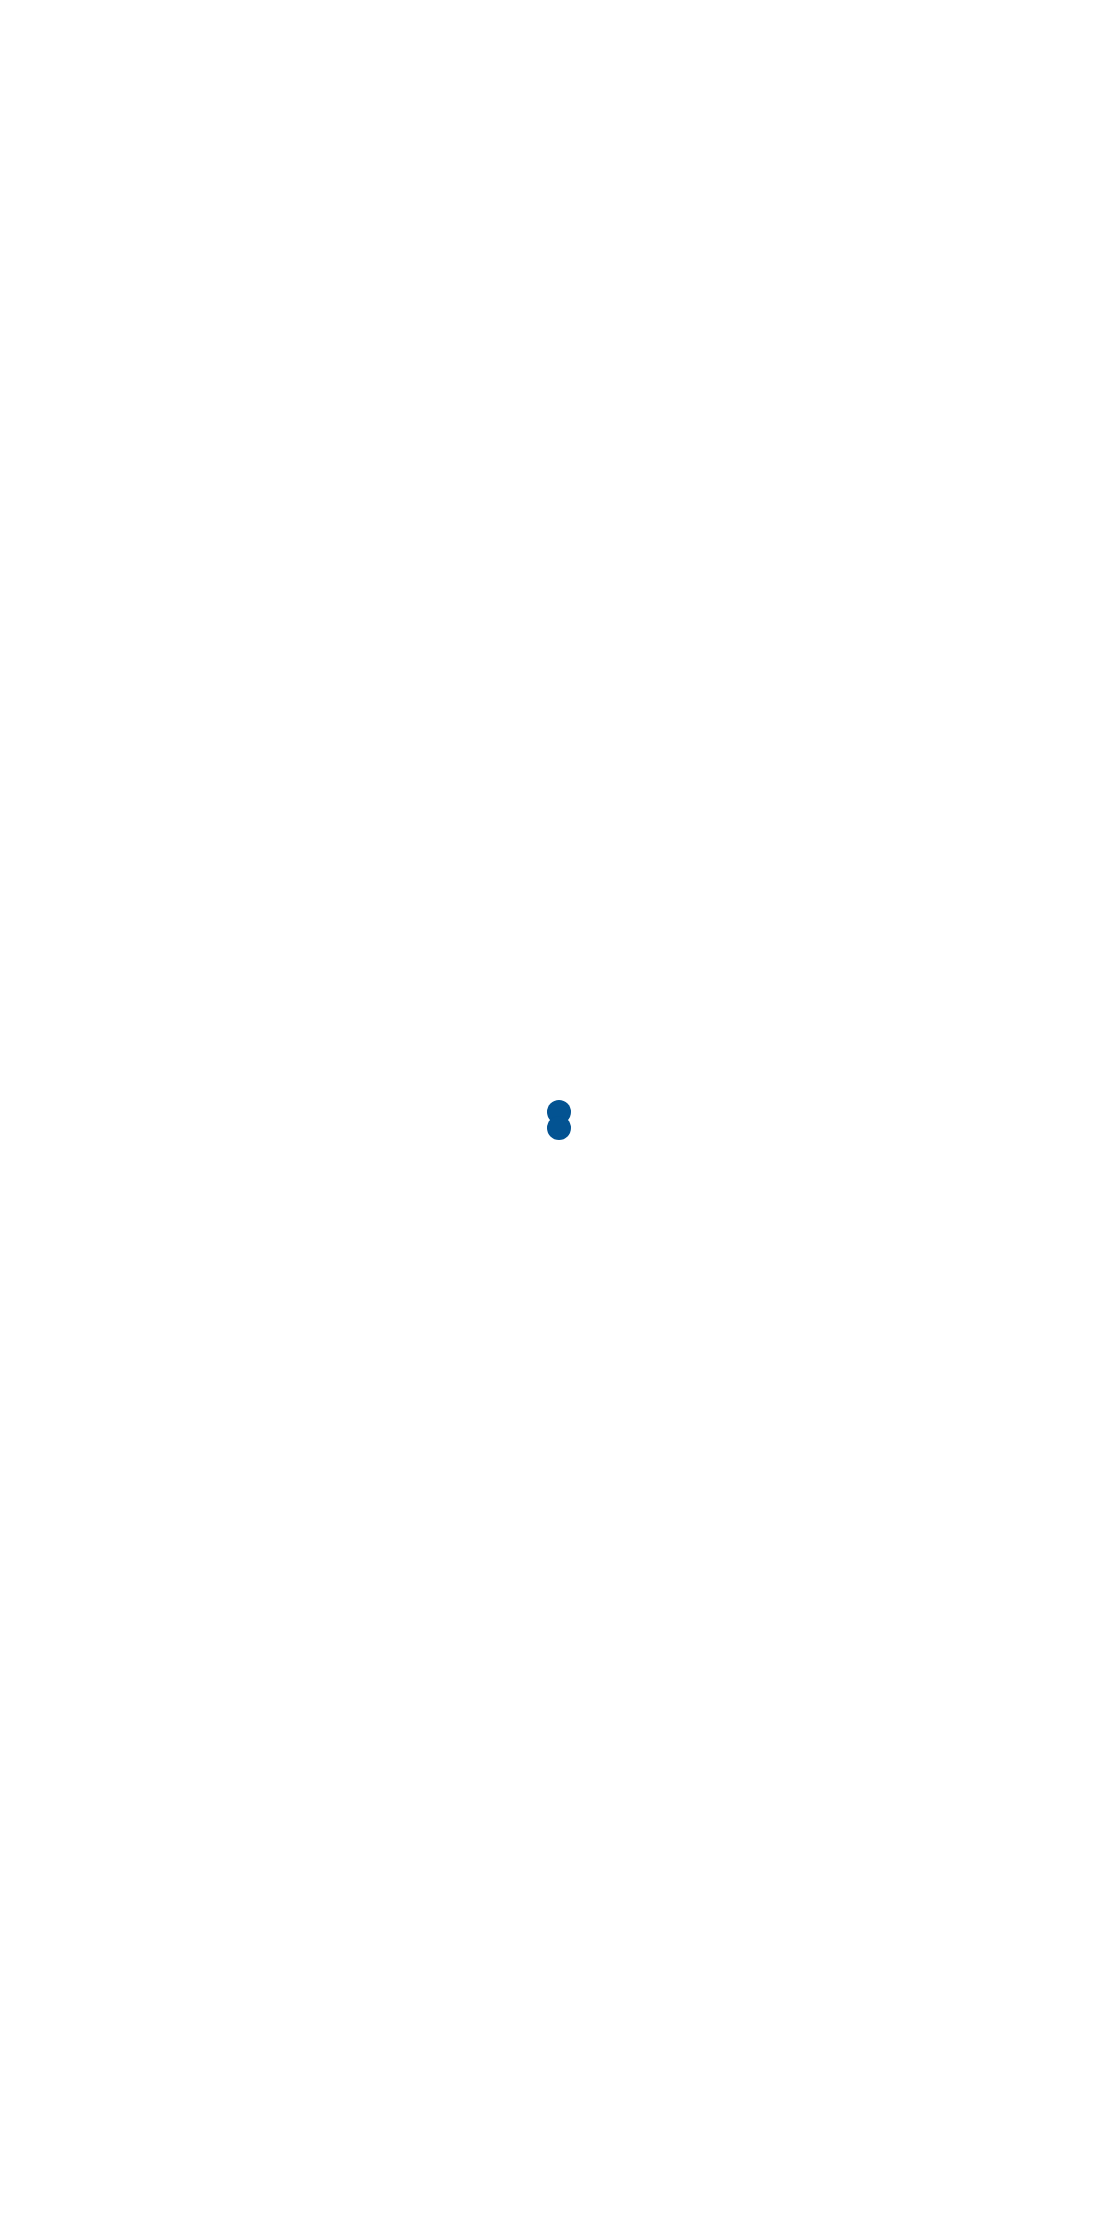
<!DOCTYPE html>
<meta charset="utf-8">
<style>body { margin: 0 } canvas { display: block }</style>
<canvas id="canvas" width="1093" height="2240"></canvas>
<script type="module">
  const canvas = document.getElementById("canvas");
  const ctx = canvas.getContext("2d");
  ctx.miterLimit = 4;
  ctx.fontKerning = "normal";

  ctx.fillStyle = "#ffffff";
  ctx.fillRect(0, 0, 1093, 2240);
  ctx.fillStyle = "#035392";
  ctx.beginPath();
  ctx.arc(559, 1112, 12, 0, Math.PI * 2);
  ctx.fill();
  ctx.beginPath();
  ctx.arc(559, 1128, 12, 0, Math.PI * 2);
  ctx.fill();
</script>
